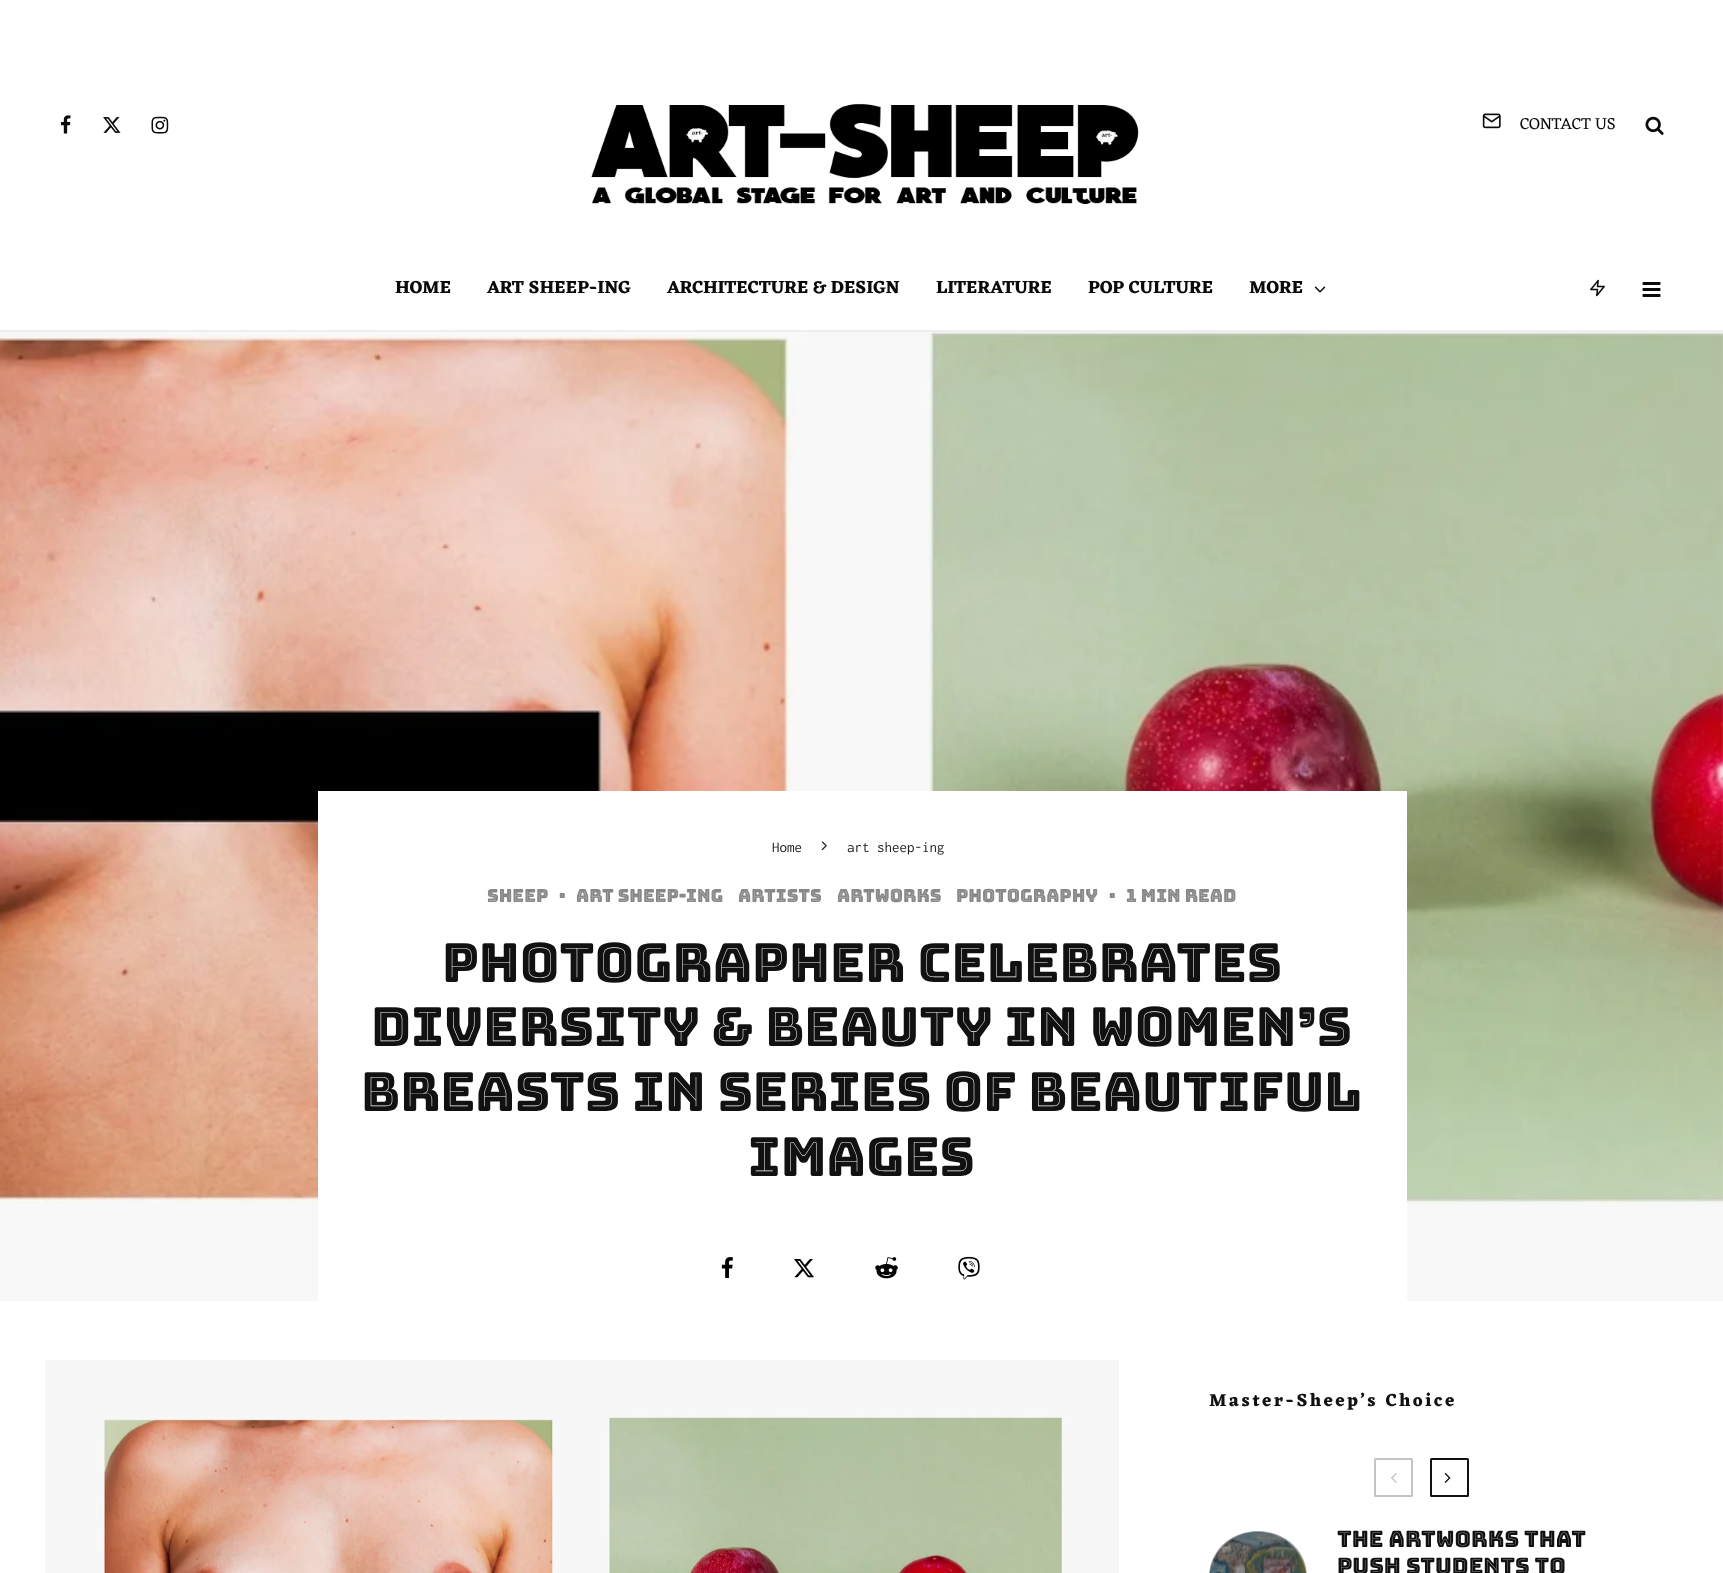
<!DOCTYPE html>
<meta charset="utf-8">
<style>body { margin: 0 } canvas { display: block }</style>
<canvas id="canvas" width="1723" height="1573"></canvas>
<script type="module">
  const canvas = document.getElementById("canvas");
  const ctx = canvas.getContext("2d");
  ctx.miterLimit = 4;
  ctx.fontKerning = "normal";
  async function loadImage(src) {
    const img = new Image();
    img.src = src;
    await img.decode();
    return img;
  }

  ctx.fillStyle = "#ffffff";
  ctx.fillRect(0, 0, 1723, 1573);
  ctx.drawImage(await loadImage("img1.png"), 61, 115, 10, 19);
  ctx.drawImage(await loadImage("img2.png"), 103, 117, 18, 16);
  ctx.drawImage(await loadImage("img3.png"), 151, 116, 18, 18);
  ctx.drawImage(await loadImage("img4.png"), 591, 103, 548, 101);
  ctx.drawImage(await loadImage("img5.png"), 1482, 113, 19, 16);
  ctx.font = "16.5px Eczar";
  ctx.fillStyle = "#0a0a0a";
  ctx.fillText("CONTACT US", 1520, 129);
  ctx.drawImage(await loadImage("img6.png"), 1645, 116, 19, 19);
  ctx.fillStyle = "#ededed";
  ctx.fillRect(0, 330, 1723, 2);
  ctx.font = "bold 18px Eczar";
  ctx.fillStyle = "#0a0a0a";
  ctx.fillText("HOME", 395, 293);
  ctx.fillText("ART SHEEP-ING", 487, 293);
  ctx.fillText("ARCHITECTURE & DESIGN", 667, 293);
  ctx.fillText("LITERATURE", 936, 293);
  ctx.fillText("POP CULTURE", 1088, 293);
  ctx.fillText("MORE", 1249, 293);
  ctx.drawImage(await loadImage("img7.png"), 1314, 286, 12, 7);
  ctx.drawImage(await loadImage("img8.png"), 1590, 279, 15, 18);
  ctx.drawImage(await loadImage("img9.png"), 1642, 282, 19, 15);
  ctx.drawImage(await loadImage("img10.png"), 0, 332, 1723, 969);
  ctx.fillStyle = "#ffffff";
  ctx.fillRect(318, 791, 1089, 510);
  ctx.font = "15px Inconsolata";
  ctx.fillStyle = "#202020";
  ctx.fillText("Home", 772, 852);
  ctx.drawImage(await loadImage("img11.png"), 821, 841, 6, 10);
  ctx.fillText("art sheep-ing", 847, 852);
  ctx.font = "18px Bungee Inline";
  ctx.fillStyle = "#888888";
  ctx.fillText("Sheep", 487, 902);
  ctx.fillText("·", 559, 902);
  ctx.fillText("art sheep-ing", 576, 902);
  ctx.fillText("Artists", 738, 902);
  ctx.fillText("Artworks", 837, 902);
  ctx.fillText("Photography", 956, 902);
  ctx.fillText("·", 1109, 902);
  ctx.fillText("1 min read", 1126, 902);
  ctx.font = "54px Bungee Inline";
  ctx.fillStyle = "#111111";
  ctx.fillText("Photographer Celebrates", 442, 982);
  ctx.fillText("Diversity & Beauty In Women’s", 371, 1046);
  ctx.fillText("Breasts In Series Of Beautiful", 361, 1111);
  ctx.fillText("Images", 748, 1176);
  ctx.drawImage(await loadImage("img12.png"), 721, 1257, 12, 21);
  ctx.drawImage(await loadImage("img13.png"), 794, 1259, 20, 19);
  ctx.drawImage(await loadImage("img14.png"), 875, 1257, 23, 22);
  ctx.drawImage(await loadImage("img15.png"), 958, 1256, 22, 24);
  ctx.drawImage(await loadImage("img16.png"), 45, 1360, 1074, 213);
  ctx.letterSpacing = "2.7px";
  ctx.font = "bold 18px Eczar";
  ctx.fillText("Master-Sheep’s Choice", 1209, 1406);
  ctx.beginPath();
  ctx.roundRect(1375, 1459, 37, 37, 0.5);
  ctx.strokeStyle = "#c4c4c4";
  ctx.lineWidth = 2;
  ctx.stroke();
  ctx.drawImage(await loadImage("img17.png"), 1391, 1473, 6, 10);
  ctx.beginPath();
  ctx.roundRect(1431, 1459, 37, 37, 0.5);
  ctx.strokeStyle = "#111111";
  ctx.stroke();
  ctx.drawImage(await loadImage("img18.png"), 1444, 1473, 7, 10);
  ctx.drawImage(await loadImage("img19.png"), 1209, 1531, 97, 42);
  ctx.fillStyle = "rgba(18, 19, 20, 0.4)";
  ctx.beginPath();
  ctx.roundRect(1209, 1532, 98, 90, 48.5);
  ctx.fill();
  ctx.letterSpacing = "0px";
  ctx.font = "22.5px Bungee Inline";
  ctx.fillStyle = "#111111";
  ctx.fillText("The Artworks That", 1337, 1547);
  ctx.fillText("Push Students to", 1337, 1574);
</script>
